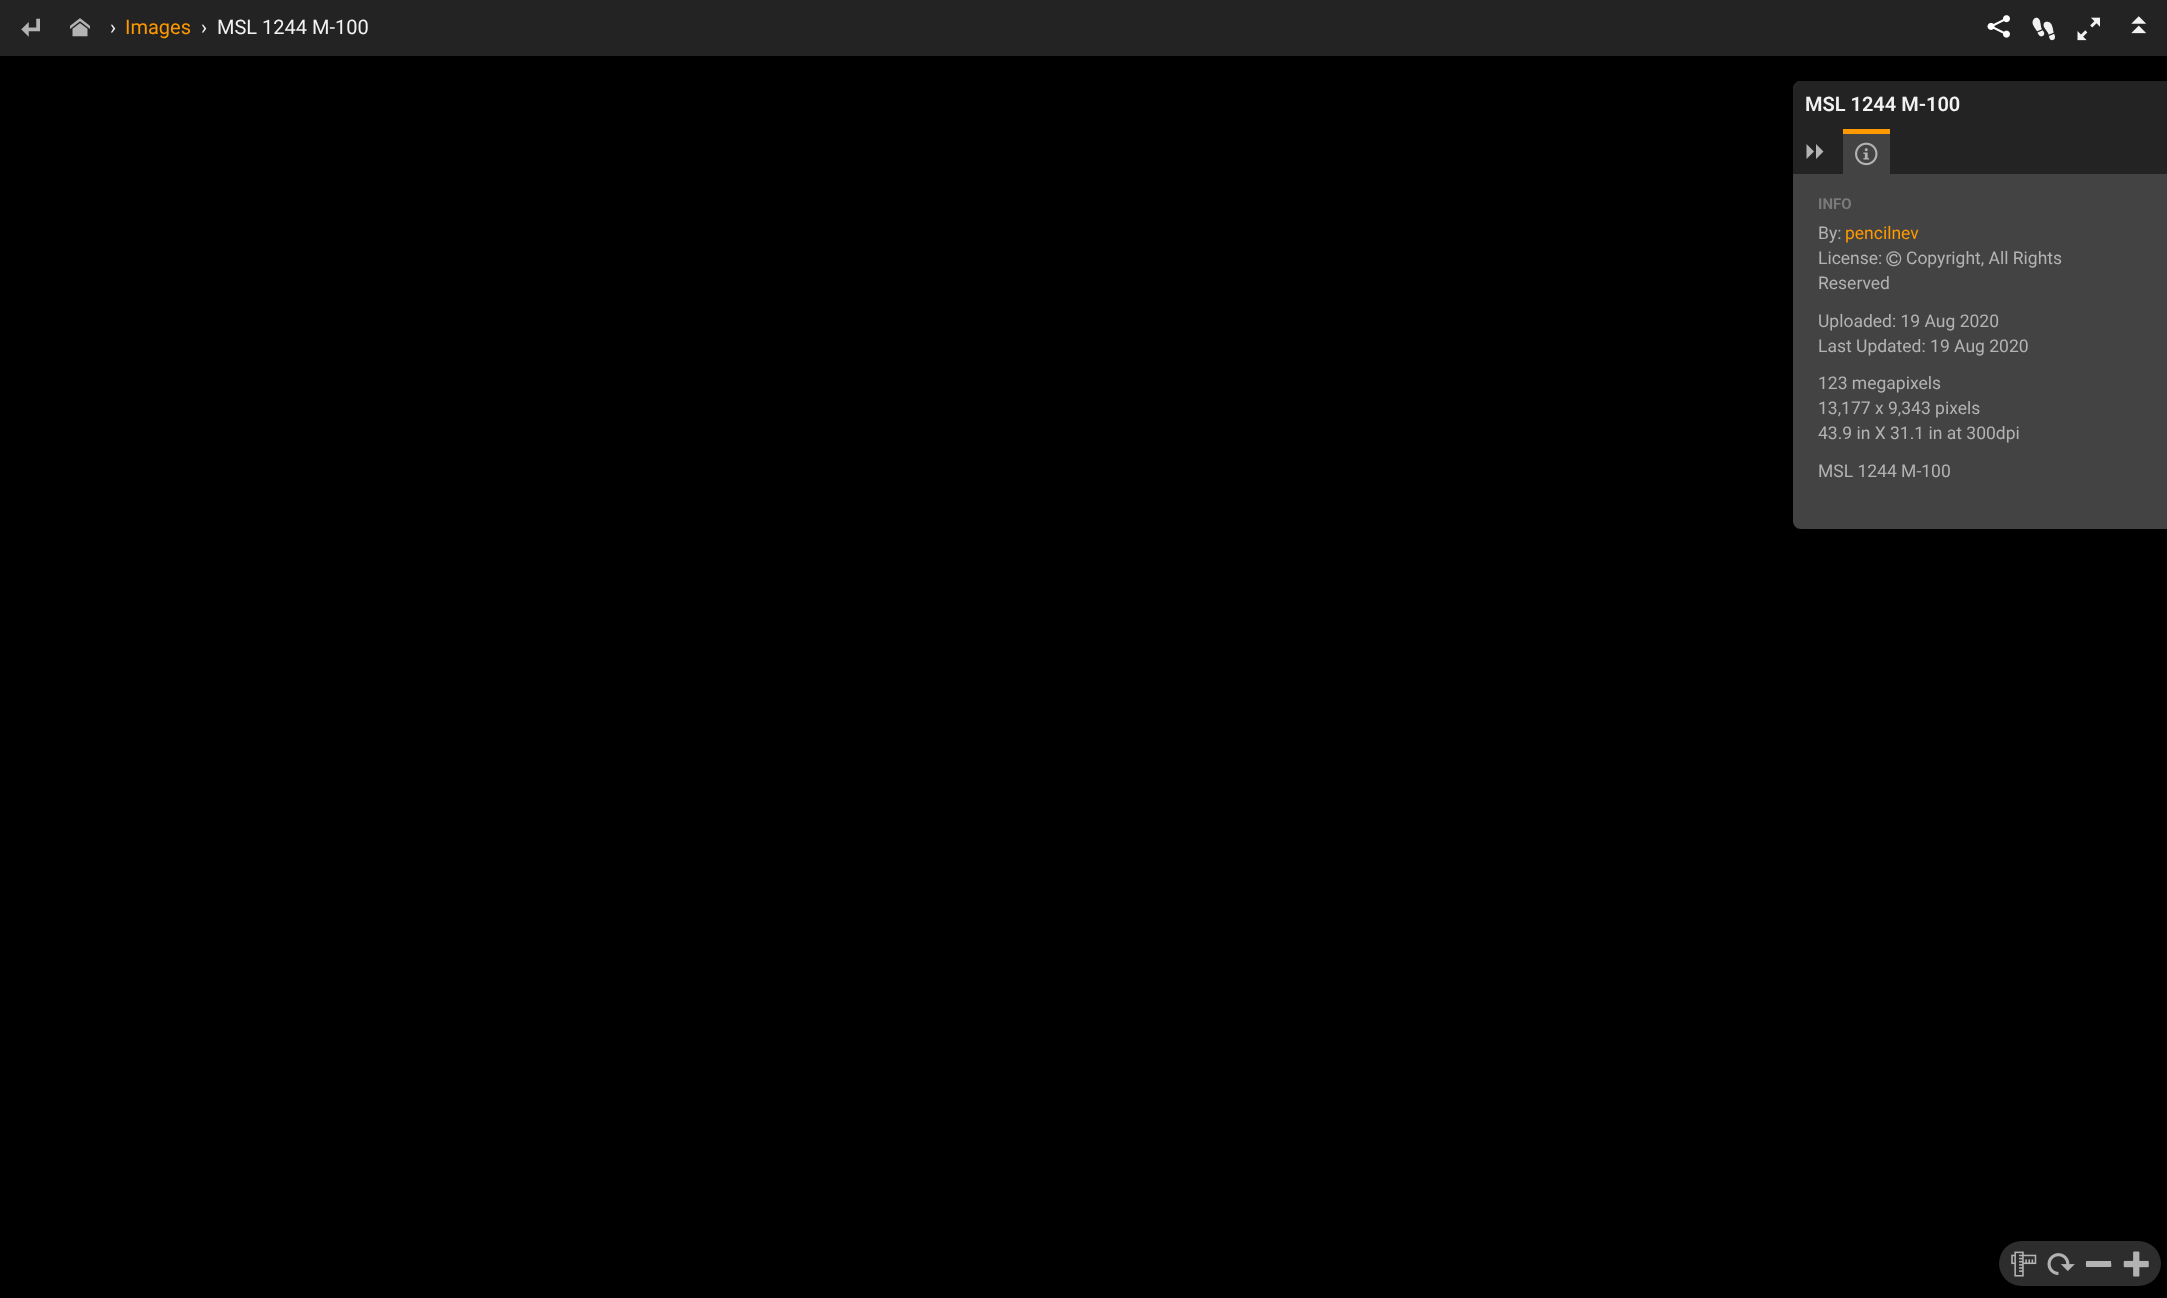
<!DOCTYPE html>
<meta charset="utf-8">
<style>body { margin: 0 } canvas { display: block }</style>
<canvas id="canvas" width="2167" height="1298"></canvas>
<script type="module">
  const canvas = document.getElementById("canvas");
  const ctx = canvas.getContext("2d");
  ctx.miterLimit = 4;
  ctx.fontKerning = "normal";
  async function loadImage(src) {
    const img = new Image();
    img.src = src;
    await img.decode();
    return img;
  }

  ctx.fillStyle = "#000000";
  ctx.fillRect(0, 0, 2167, 1298);
  ctx.fillStyle = "#232323";
  ctx.fillRect(0, 0, 2167, 56);
  ctx.drawImage(await loadImage("img1.png"), 21, 18, 19, 19);
  ctx.drawImage(await loadImage("img2.png"), 70, 18, 20, 19);
  ctx.font = "20px Roboto";
  ctx.fillStyle = "#f2f2f2";
  ctx.fillText("›", 110, 34);
  ctx.fillStyle = "#ff9900";
  ctx.fillText("Images", 125, 34);
  ctx.fillStyle = "#f2f2f2";
  ctx.fillText("›", 201, 34);
  ctx.fillText("MSL 1244 M-100", 217, 34);
  ctx.drawImage(await loadImage("img3.png"), 1987, 15, 23, 23);
  ctx.drawImage(await loadImage("img4.png"), 2032, 17, 23, 24);
  ctx.drawImage(await loadImage("img5.png"), 2077, 17, 23, 24);
  ctx.drawImage(await loadImage("img6.png"), 2131, 16, 16, 18);
  ctx.fillStyle = "#434343";
  ctx.beginPath();
  ctx.moveTo(1801, 81);
  ctx.lineTo(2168, 81);
  ctx.lineTo(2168, 529);
  ctx.lineTo(1801, 529);
  ctx.bezierCurveTo(1796.5, 529, 1793, 525.5, 1793, 521);
  ctx.lineTo(1793, 89);
  ctx.bezierCurveTo(1793, 84.5, 1796.5, 81, 1801, 81);
  ctx.closePath();
  ctx.fill();
  ctx.fillStyle = "#232323";
  ctx.beginPath();
  ctx.moveTo(1801, 81);
  ctx.lineTo(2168, 81);
  ctx.lineTo(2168, 129);
  ctx.lineTo(1793, 129);
  ctx.lineTo(1793, 89);
  ctx.bezierCurveTo(1793, 84.5, 1796.5, 81, 1801, 81);
  ctx.closePath();
  ctx.fill();
  ctx.font = "600 20px Roboto";
  ctx.fillStyle = "#f2f2f2";
  ctx.fillText("MSL 1244 M-100", 1805, 111);
  ctx.fillStyle = "#232323";
  ctx.fillRect(1793, 129, 374, 45);
  ctx.fillStyle = "#b3b3b3";
  ctx.beginPath();
  ctx.moveTo(1806.5, 159);
  ctx.lineTo(1814, 151.5);
  ctx.lineTo(1806.5, 144);
  ctx.closePath();
  ctx.moveTo(1816, 159);
  ctx.lineTo(1823.5, 151.5);
  ctx.lineTo(1816, 144);
  ctx.closePath();
  ctx.fill();
  ctx.fillStyle = "#434343";
  ctx.fillRect(1843, 134, 47, 40);
  ctx.fillStyle = "#ff9900";
  ctx.fillRect(1843, 129, 47, 5);
  ctx.drawImage(await loadImage("img7.png"), 1855, 142, 23, 24);
  ctx.font = "bold 15px Roboto";
  ctx.fillStyle = "#7a7a7a";
  ctx.fillText("INFO", 1818, 209);
  ctx.font = "17.5px Roboto";
  ctx.fillStyle = "#b3b3b3";
  ctx.fillText("By:", 1818, 239);
  ctx.fillStyle = "#ff9900";
  ctx.fillText("pencilnev", 1845, 239);
  ctx.fillStyle = "#b3b3b3";
  ctx.fillText("License:", 1818, 264);
  ctx.drawImage(await loadImage("img8.png"), 1886, 251, 16, 16);
  ctx.fillText("Copyright, All Rights", 1906, 264);
  ctx.fillText("Reserved", 1818, 289);
  ctx.fillText("Uploaded: 19 Aug 2020", 1818, 327);
  ctx.fillText("Last Updated: 19 Aug 2020", 1818, 352);
  ctx.fillText("123 megapixels", 1818, 389);
  ctx.fillText("13,177 x 9,343 pixels", 1818, 414);
  ctx.fillText("43.9 in X 31.1 in at 300dpi", 1818, 439);
  ctx.fillText("MSL 1244 M-100", 1818, 477);
  ctx.fillStyle = "#2d2d2d";
  ctx.beginPath();
  ctx.roundRect(1999, 1241, 162, 45, 22.5);
  ctx.fill();
  ctx.drawImage(await loadImage("img9.png"), 2011, 1251, 26, 26);
  ctx.drawImage(await loadImage("img10.png"), 2047, 1253, 28, 22);
  ctx.fillStyle = "#b3b3b3";
  ctx.beginPath();
  ctx.moveTo(2086, 1261.5);
  ctx.bezierCurveTo(2086, 1268, 2085, 1267, 2091, 1267);
  ctx.lineTo(2106.5, 1267);
  ctx.bezierCurveTo(2112.5, 1267, 2111.5, 1268, 2111, 1261.5);
  ctx.lineTo(2111, 1261);
  ctx.lineTo(2086.5, 1261);
  ctx.closePath();
  ctx.fill();
  ctx.drawImage(await loadImage("img11.png"), 2123, 1251, 26, 26);
</script>
